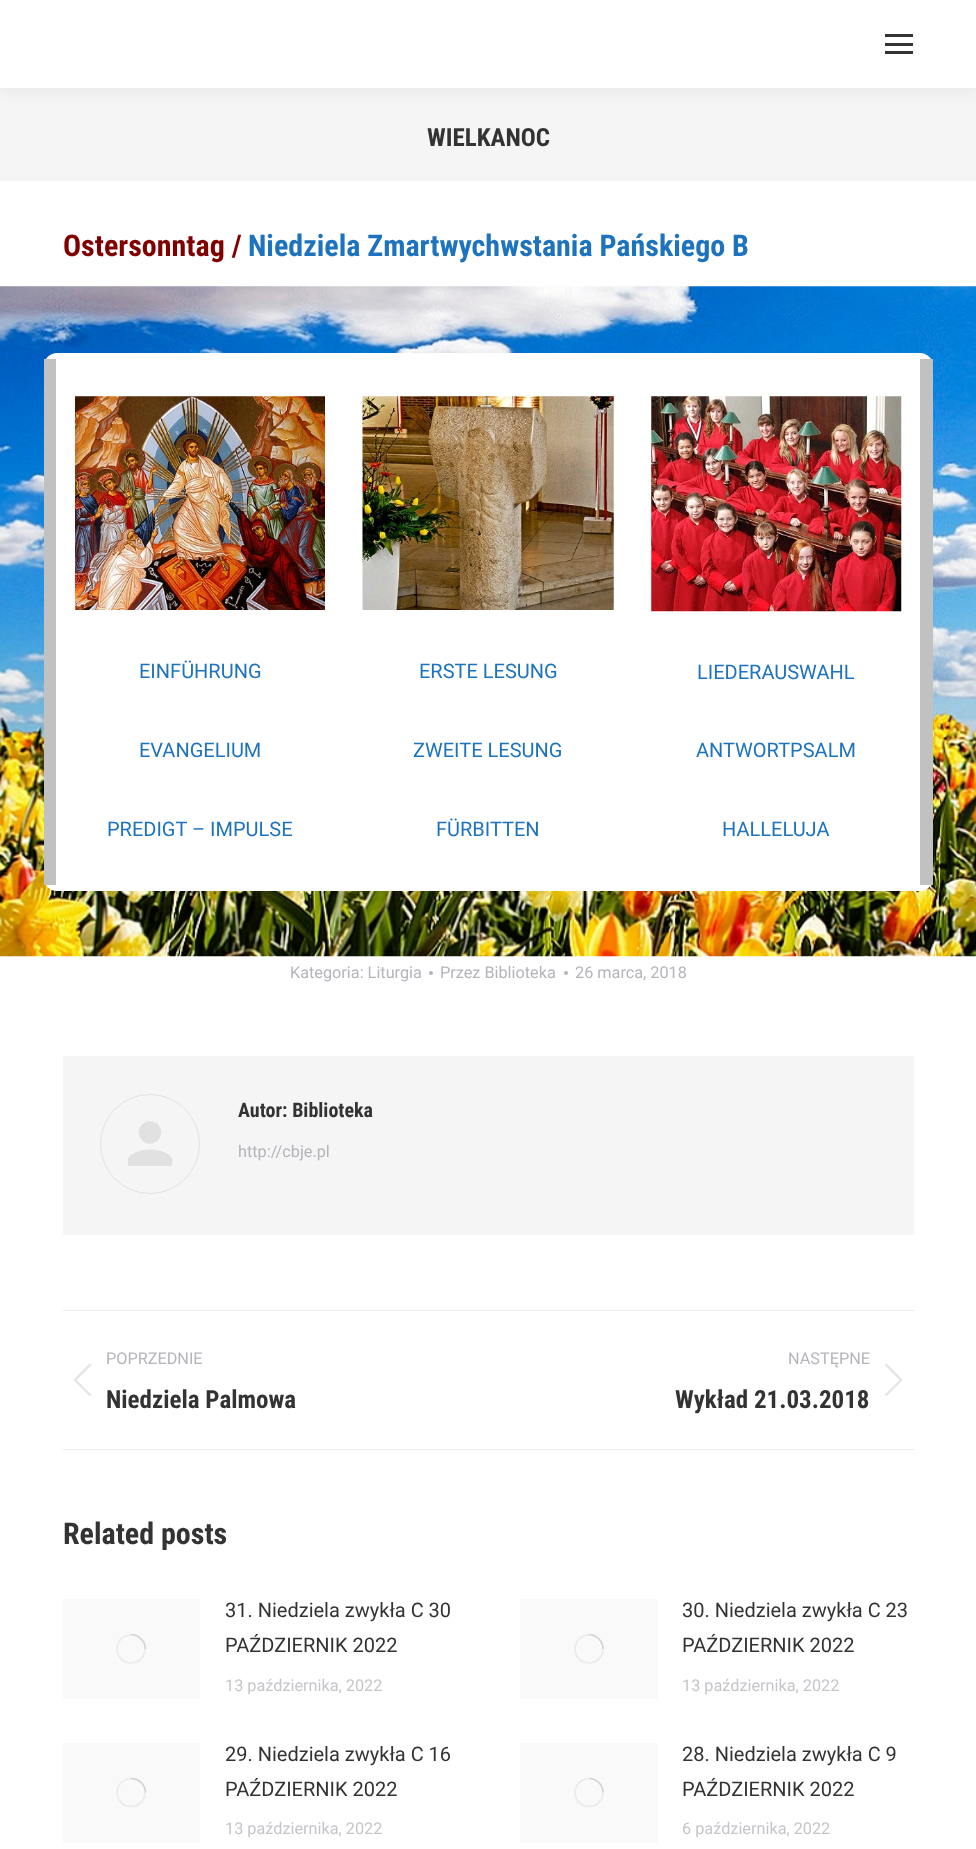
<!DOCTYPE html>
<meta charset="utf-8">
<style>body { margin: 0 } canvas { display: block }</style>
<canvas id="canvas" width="976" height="1849"></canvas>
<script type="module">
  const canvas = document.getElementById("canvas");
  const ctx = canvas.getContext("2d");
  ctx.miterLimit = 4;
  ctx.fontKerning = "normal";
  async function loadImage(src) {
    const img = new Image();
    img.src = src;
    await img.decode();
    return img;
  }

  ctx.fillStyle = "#ffffff";
  ctx.fillRect(0, 0, 976, 1849);
  ctx.fillStyle = "#f5f5f5";
  ctx.fillRect(0, 88, 976, 93);
  ctx.fillStyle = "rgba(0, 0, 0, 0.07)";
  ctx.filter = "blur(9.5px)";
  ctx.beginPath();
  ctx.rect(-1, -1, 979, 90);
  ctx.fill();
  ctx.filter = "none";
  ctx.fillStyle = "#ffffff";
  ctx.fillRect(0, 0, 976, 88);
  ctx.fillStyle = "#333333";
  ctx.fillRect(885, 34, 28, 3);
  ctx.fillRect(885, 43, 28, 3);
  ctx.fillRect(885, 51, 28, 3);
  ctx.font = "bold 25px Roboto Condensed";
  ctx.fillText("WIELKANOC", 427, 146);
  ctx.font = "bold 30px Roboto Condensed";
  ctx.fillStyle = "#800000";
  ctx.fillText("Ostersonntag /", 63, 256);
  ctx.fillStyle = "#1e73be";
  ctx.fillText("Niedziela Zmartwychwstania Pańskiego B", 248, 256);
  ctx.drawImage(await loadImage("img1.png"), 0, 286, 976, 671);
  ctx.fillStyle = "#ffffff";
  ctx.beginPath();
  ctx.roundRect(44, 353, 889, 538, 13);
  ctx.fill();
  ctx.fillStyle = "#c1c1c1";
  ctx.fillRect(920, 359, 13, 526);
  ctx.fillRect(44, 359, 12, 526);
  ctx.drawImage(await loadImage("img2.png"), 75, 396, 250, 214);
  ctx.font = "20px Roboto";
  ctx.fillStyle = "#1e73be";
  ctx.fillText("EINFÜHRUNG", 139, 678);
  ctx.fillText("EVANGELIUM", 139, 757);
  ctx.fillText("PREDIGT – IMPULSE", 107, 836);
  ctx.drawImage(await loadImage("img3.png"), 362, 396, 252, 214);
  ctx.fillText("ERSTE LESUNG", 419, 678);
  ctx.fillText("ZWEITE LESUNG", 413, 757);
  ctx.fillText("FÜRBITTEN", 436, 836);
  ctx.drawImage(await loadImage("img4.png"), 651, 396, 251, 216);
  ctx.fillText("LIEDERAUSWAHL", 697, 679);
  ctx.fillText("ANTWORTPSALM", 696, 757);
  ctx.fillText("HALLELUJA", 722, 836);
  ctx.font = "16.25px Roboto";
  ctx.fillStyle = "#b4b5bb";
  ctx.fillText("Kategoria: Liturgia", 290, 978);
  ctx.beginPath();
  ctx.arc(431, 973, 2, 0, Math.PI * 2);
  ctx.fill();
  ctx.fillText("Przez Biblioteka", 440, 978);
  ctx.beginPath();
  ctx.arc(566, 973, 2, 0, Math.PI * 2);
  ctx.fill();
  ctx.fillText("26 marca, 2018", 575, 978);
  ctx.fillStyle = "#f5f5f5";
  ctx.fillRect(63, 1056, 851, 179);
  ctx.beginPath();
  ctx.arc(150, 1144, 49.5, 0, Math.PI * 2);
  ctx.strokeStyle = "#e1e1e1";
  ctx.stroke();
  ctx.drawImage(await loadImage("img5.png"), 128, 1121, 45, 45);
  ctx.font = "bold 20px Roboto Condensed";
  ctx.fillStyle = "#333333";
  ctx.fillText("Autor: Biblioteka", 238, 1117);
  ctx.font = "16.25px Roboto";
  ctx.fillStyle = "#b4b5bb";
  ctx.fillText("http://cbje.pl", 238, 1157);
  ctx.fillStyle = "#ebebeb";
  ctx.fillRect(63, 1310, 851, 1);
  ctx.fillRect(63, 1449, 851, 1);
  ctx.fillStyle = "#b4b5bb";
  ctx.fillText("POPRZEDNIE", 106, 1364);
  ctx.drawImage(await loadImage("img6.png"), 73, 1364, 19, 32);
  ctx.font = "bold 25px Roboto Condensed";
  ctx.fillStyle = "#333333";
  ctx.fillText("Niedziela Palmowa", 106, 1408);
  ctx.font = "16.25px Roboto";
  ctx.fillStyle = "#b4b5bb";
  ctx.fillText("NASTĘPNE", 788, 1364);
  ctx.drawImage(await loadImage("img7.png"), 885, 1363, 18, 33);
  ctx.font = "bold 25px Roboto Condensed";
  ctx.fillStyle = "#333333";
  ctx.fillText("Wykład 21.03.2018", 675, 1408);
  ctx.font = "bold 30px Roboto Condensed";
  ctx.fillText("Related posts", 63, 1544);
  ctx.fillStyle = "#f9f9fa";
  ctx.fillRect(63, 1599, 137, 100);
  ctx.beginPath();
  ctx.arc(131, 1649, 14, 0, Math.PI * 2);
  ctx.strokeStyle = "#eaeaec";
  ctx.lineWidth = 1.6;
  ctx.stroke();
  ctx.beginPath();
  ctx.moveTo(145.5, 1649);
  ctx.bezierCurveTo(145.5, 1641, 139, 1634.5, 131, 1634.5);
  ctx.strokeStyle = "rgba(139, 141, 148, 0.25)";
  ctx.stroke();
  ctx.font = "20px Roboto";
  ctx.fillStyle = "#333333";
  ctx.fillText("31. Niedziela zwykła C 30", 225, 1617);
  ctx.fillText("PAŹDZIERNIK 2022", 225, 1652);
  ctx.font = "16.25px Roboto";
  ctx.fillStyle = "#c5c6ca";
  ctx.fillText("13 października, 2022", 225, 1691);
  ctx.fillStyle = "#f9f9fa";
  ctx.fillRect(520, 1599, 138, 100);
  ctx.beginPath();
  ctx.arc(589, 1649, 14, 0, Math.PI * 2);
  ctx.strokeStyle = "#eaeaec";
  ctx.stroke();
  ctx.beginPath();
  ctx.moveTo(603, 1649);
  ctx.bezierCurveTo(603, 1641, 596.5, 1634.5, 589, 1634.5);
  ctx.strokeStyle = "rgba(139, 141, 148, 0.25)";
  ctx.stroke();
  ctx.font = "20px Roboto";
  ctx.fillStyle = "#333333";
  ctx.fillText("30. Niedziela zwykła C 23", 682, 1617);
  ctx.fillText("PAŹDZIERNIK 2022", 682, 1652);
  ctx.font = "16.25px Roboto";
  ctx.fillStyle = "#c5c6ca";
  ctx.fillText("13 października, 2022", 682, 1691);
  ctx.fillStyle = "#f9f9fa";
  ctx.fillRect(63, 1743, 137, 100);
  ctx.save();
  ctx.beginPath();
  ctx.rect(116, 1778, 30, 30);
  ctx.clip();
  ctx.beginPath();
  ctx.arc(131, 1792.5, 14, 0, Math.PI * 2);
  ctx.strokeStyle = "#eaeaec";
  ctx.stroke();
  ctx.restore();
  ctx.beginPath();
  ctx.moveTo(145.5, 1792.5);
  ctx.bezierCurveTo(145.5, 1784.5, 139, 1778.5, 131, 1778.5);
  ctx.stroke();
  ctx.font = "20px Roboto";
  ctx.fillStyle = "#333333";
  ctx.fillText("29. Niedziela zwykła C 16", 225, 1761);
  ctx.fillText("PAŹDZIERNIK 2022", 225, 1796);
  ctx.font = "16.25px Roboto";
  ctx.fillStyle = "#c5c6ca";
  ctx.fillText("13 października, 2022", 225, 1834);
  ctx.fillStyle = "#f9f9fa";
  ctx.fillRect(520, 1743, 138, 100);
  ctx.save();
  ctx.beginPath();
  ctx.rect(574, 1778, 30, 30);
  ctx.clip();
  ctx.beginPath();
  ctx.arc(589, 1792.5, 14, 0, Math.PI * 2);
  ctx.strokeStyle = "#eaeaec";
  ctx.stroke();
  ctx.restore();
  ctx.beginPath();
  ctx.moveTo(603, 1792.5);
  ctx.bezierCurveTo(603, 1784.5, 596.5, 1778.5, 589, 1778.5);
  ctx.stroke();
  ctx.font = "20px Roboto";
  ctx.fillStyle = "#333333";
  ctx.fillText("28. Niedziela zwykła C 9", 682, 1761);
  ctx.fillText("PAŹDZIERNIK 2022", 682, 1796);
  ctx.font = "16.25px Roboto";
  ctx.fillStyle = "#c5c6ca";
  ctx.fillText("6 października, 2022", 682, 1834);
</script>
